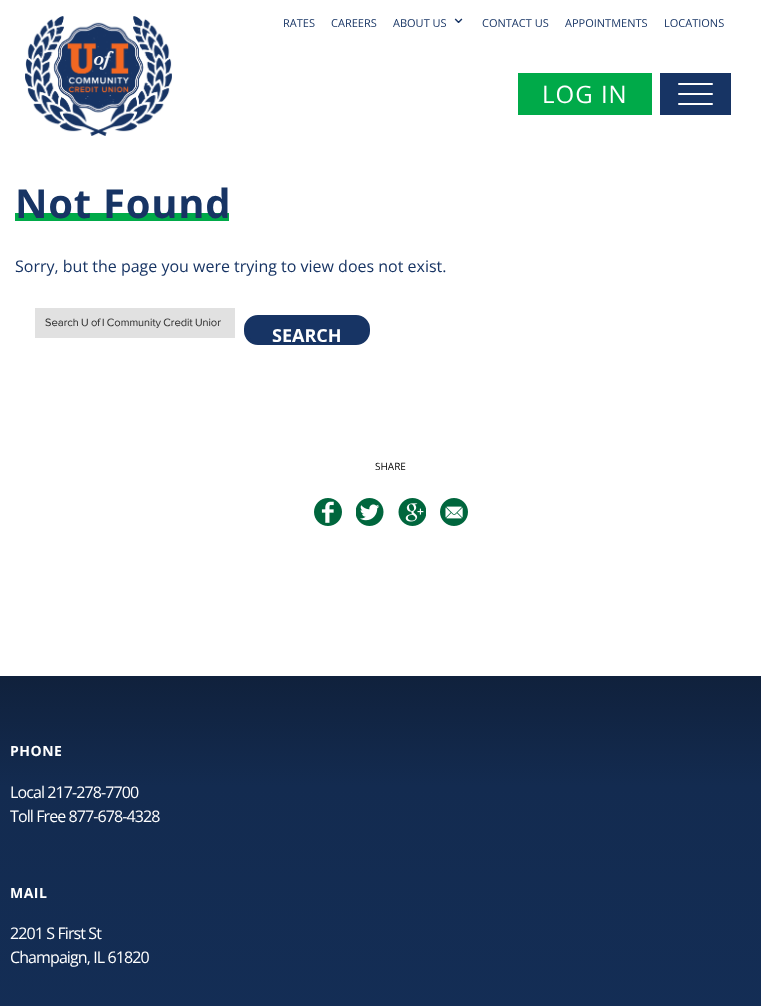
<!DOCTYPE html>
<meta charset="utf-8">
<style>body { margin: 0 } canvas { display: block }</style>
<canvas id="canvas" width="761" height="1006"></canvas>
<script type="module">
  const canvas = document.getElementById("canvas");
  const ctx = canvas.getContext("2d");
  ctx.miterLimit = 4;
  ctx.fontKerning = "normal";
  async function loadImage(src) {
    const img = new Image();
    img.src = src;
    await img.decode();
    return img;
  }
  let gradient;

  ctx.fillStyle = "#ffffff";
  ctx.fillRect(0, 0, 761, 1006);
  ctx.drawImage(await loadImage("img1.png"), 25, 16, 147, 120);
  ctx.font = "11px Open Sans";
  ctx.fillStyle = "#173464";
  ctx.fillText("RATES", 283, 27);
  ctx.fillText("CAREERS", 331, 27);
  ctx.fillText("ABOUT US", 393, 27);
  ctx.font = "18px DejaVu Sans";
  ctx.fillText("⌄", 451, 23);
  ctx.font = "11px Open Sans";
  ctx.fillText("CONTACT US", 482, 27);
  ctx.fillText("APPOINTMENTS", 565, 27);
  ctx.fillText("LOCATIONS", 664, 27);
  ctx.fillStyle = "#00aa49";
  ctx.fillRect(518, 73, 134, 42);
  ctx.letterSpacing = "1px";
  ctx.font = "24px Open Sans";
  ctx.fillStyle = "#ffffff";
  ctx.fillText("LOG IN", 542, 103);
  ctx.fillStyle = "#173464";
  ctx.fillRect(660, 73, 71, 42);
  ctx.fillStyle = "#ffffff";
  ctx.beginPath();
  ctx.roundRect(678, 83, 35, 2, 1);
  ctx.fill();
  ctx.beginPath();
  ctx.roundRect(678, 93, 35, 2, 1);
  ctx.fill();
  ctx.beginPath();
  ctx.roundRect(678, 103, 35, 2, 1);
  ctx.fill();
  ctx.fillStyle = "#00aa49";
  ctx.fillRect(15, 213, 214, 8);
  ctx.letterSpacing = "0.75px";
  ctx.font = "bold 40px Open Sans";
  ctx.fillStyle = "#173464";
  ctx.fillText("Not Found", 15, 218);
  ctx.letterSpacing = "0px";
  ctx.font = "16px Open Sans";
  ctx.fillText("Sorry, but the page you were trying to view does not exist.", 15, 272);
  ctx.fillStyle = "#e1e1e1";
  ctx.fillRect(35, 308, 200, 30);
  ctx.save();
  ctx.beginPath();
  ctx.rect(45, 317, 176, 11);
  ctx.clip();
  ctx.font = "11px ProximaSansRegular";
  ctx.fillStyle = "#333333";
  ctx.fillText("Search U of I Community Credit Union", 45, 326);
  ctx.restore();
  ctx.fillStyle = "#173464";
  ctx.beginPath();
  ctx.roundRect(245.5, 316.5, 123, 27, 12.5);
  ctx.fill();
  ctx.strokeStyle = "#173464";
  ctx.lineWidth = 3;
  ctx.stroke();
  ctx.save();
  ctx.beginPath();
  ctx.roundRect(247, 318, 120, 24, 11);
  ctx.clip();
  ctx.font = "bold 18px Open Sans";
  ctx.fillStyle = "#ffffff";
  ctx.fillText("SEARCH", 272, 342);
  ctx.restore();
  ctx.font = "10px Open Sans";
  ctx.fillStyle = "#030303";
  ctx.fillText("SHARE", 375, 470);
  ctx.drawImage(await loadImage("img2.png"), 314, 498, 28, 28);
  ctx.drawImage(await loadImage("img3.png"), 356, 498, 28, 28);
  ctx.drawImage(await loadImage("img4.png"), 398, 498, 28, 28);
  ctx.drawImage(await loadImage("img5.png"), 440, 498, 28, 28);
  gradient = ctx.createLinearGradient(380, 676, 381, 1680);
  gradient.addColorStop(0, "#10213c");
  gradient.addColorStop(0.11, "#132b50");
  gradient.addColorStop(1, "#153464");
  ctx.fillStyle = gradient;
  ctx.fillRect(0, 676, 761, 330);
  ctx.letterSpacing = "0.5px";
  ctx.font = "bold 14px Open Sans";
  ctx.fillStyle = "#ffffff";
  ctx.fillText("PHONE", 10, 756);
  ctx.letterSpacing = "-0.9px";
  ctx.font = "16px Open Sans";
  ctx.fillText("Local 217-278-7700", 10, 798);
  ctx.fillText("Toll Free 877-678-4328", 10, 822);
  ctx.letterSpacing = "0.5px";
  ctx.font = "bold 14px Open Sans";
  ctx.fillText("MAIL", 10, 898);
  ctx.letterSpacing = "-0.9px";
  ctx.font = "16px Open Sans";
  ctx.fillText("2201 S First St", 10, 939);
  ctx.fillText("Champaign, IL 61820", 10, 963);
</script>
